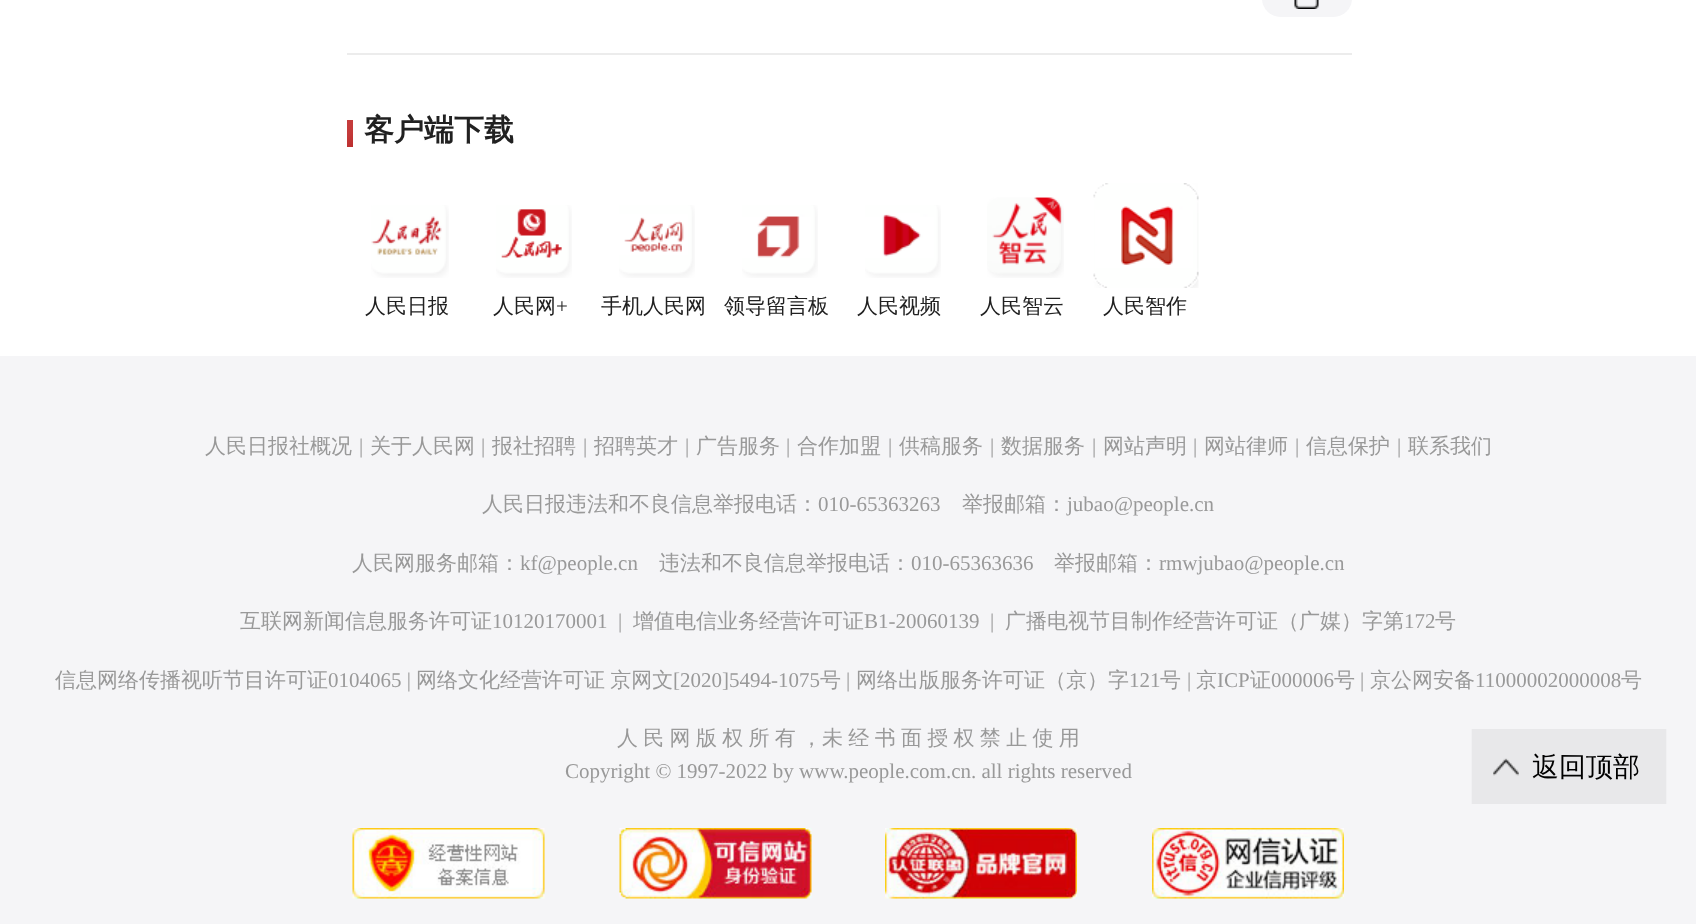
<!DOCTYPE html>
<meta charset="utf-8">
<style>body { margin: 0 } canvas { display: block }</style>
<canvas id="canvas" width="1696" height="924"></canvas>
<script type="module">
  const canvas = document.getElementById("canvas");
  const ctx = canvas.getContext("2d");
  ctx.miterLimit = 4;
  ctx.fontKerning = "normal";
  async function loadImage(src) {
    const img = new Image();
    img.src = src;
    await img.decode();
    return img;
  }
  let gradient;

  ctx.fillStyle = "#ffffff";
  ctx.fillRect(0, 0, 1696, 924);
  ctx.fillStyle = "#f5f5f7";
  ctx.beginPath();
  ctx.roundRect(1262, -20, 90, 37, 19.5);
  ctx.fill();
  ctx.drawImage(await loadImage("img1.png"), 1294, 0, 25, 9);
  ctx.fillStyle = "#ececec";
  ctx.fillRect(347, 53, 1005, 2);
  gradient = ctx.createLinearGradient(341, 125, 358, 142);
  gradient.addColorStop(0, "#c53d3d");
  gradient.addColorStop(0.49, "#c43a3a");
  gradient.addColorStop(1, "#bb2d2d");
  ctx.fillStyle = gradient;
  ctx.fillRect(347, 120, 6, 27);
  ctx.font = "bold 30px WenQuanYi Zen Hei";
  ctx.fillStyle = "#212121";
  ctx.fillText("客户端下载", 364, 140);
  ctx.drawImage(await loadImage("img2.png"), 371, 205, 78, 73);
  ctx.font = "500 21px WenQuanYi Zen Hei";
  ctx.fillText("人民日报", 365, 313);
  ctx.drawImage(await loadImage("img3.png"), 496, 205, 76, 73);
  ctx.fillText("人民网", 493, 313);
  ctx.font = "21px Liberation Serif";
  ctx.fillText("+", 556, 313);
  ctx.drawImage(await loadImage("img4.png"), 619, 205, 76, 73);
  ctx.font = "500 21px WenQuanYi Zen Hei";
  ctx.fillText("手机人民网", 601, 313);
  ctx.drawImage(await loadImage("img5.png"), 742, 205, 76, 73);
  ctx.fillText("领导留言板", 724, 313);
  ctx.drawImage(await loadImage("img6.png"), 865, 205, 76, 73);
  ctx.fillText("人民视频", 857, 313);
  ctx.drawImage(await loadImage("img7.png"), 987, 197, 77, 81);
  ctx.fillText("人民智云", 980, 313);
  ctx.drawImage(await loadImage("img8.png"), 1093, 183, 106, 105);
  ctx.fillText("人民智作", 1103, 313);
  ctx.fillStyle = "#f5f5f7";
  ctx.fillRect(0, 356, 1696, 568);
  ctx.fillStyle = "#999999";
  ctx.fillText("人民日报社概况", 205, 453);
  ctx.font = "21px Liberation Serif";
  ctx.fillText("|", 359, 453);
  ctx.font = "500 21px WenQuanYi Zen Hei";
  ctx.fillText("关于人民网", 370, 453);
  ctx.font = "21px Liberation Serif";
  ctx.fillText("|", 481, 453);
  ctx.font = "500 21px WenQuanYi Zen Hei";
  ctx.fillText("报社招聘", 492, 453);
  ctx.font = "21px Liberation Serif";
  ctx.fillText("|", 583, 453);
  ctx.font = "500 21px WenQuanYi Zen Hei";
  ctx.fillText("招聘英才", 594, 453);
  ctx.font = "21px Liberation Serif";
  ctx.fillText("|", 685, 453);
  ctx.font = "500 21px WenQuanYi Zen Hei";
  ctx.fillText("广告服务", 696, 453);
  ctx.font = "21px Liberation Serif";
  ctx.fillText("|", 786, 453);
  ctx.font = "500 21px WenQuanYi Zen Hei";
  ctx.fillText("合作加盟", 797, 453);
  ctx.font = "21px Liberation Serif";
  ctx.fillText("|", 888, 453);
  ctx.font = "500 21px WenQuanYi Zen Hei";
  ctx.fillText("供稿服务", 899, 453);
  ctx.font = "21px Liberation Serif";
  ctx.fillText("|", 990, 453);
  ctx.font = "500 21px WenQuanYi Zen Hei";
  ctx.fillText("数据服务", 1001, 453);
  ctx.font = "21px Liberation Serif";
  ctx.fillText("|", 1092, 453);
  ctx.font = "500 21px WenQuanYi Zen Hei";
  ctx.fillText("网站声明", 1103, 453);
  ctx.font = "21px Liberation Serif";
  ctx.fillText("|", 1193, 453);
  ctx.font = "500 21px WenQuanYi Zen Hei";
  ctx.fillText("网站律师", 1204, 453);
  ctx.font = "21px Liberation Serif";
  ctx.fillText("|", 1295, 453);
  ctx.font = "500 21px WenQuanYi Zen Hei";
  ctx.fillText("信息保护", 1306, 453);
  ctx.font = "21px Liberation Serif";
  ctx.fillText("|", 1397, 453);
  ctx.font = "500 21px WenQuanYi Zen Hei";
  ctx.fillText("联系我们", 1408, 453);
  ctx.fillText("人民日报违法和不良信息举报电话：", 482, 511);
  ctx.font = "21px Liberation Serif";
  ctx.fillText("010-65363263", 818, 511);
  ctx.font = "500 21px WenQuanYi Zen Hei";
  ctx.fillText("举报邮箱：", 962, 511);
  ctx.font = "21px Liberation Serif";
  ctx.fillText("jubao@people.cn", 1067, 511);
  ctx.font = "500 21px WenQuanYi Zen Hei";
  ctx.fillText("人民网服务邮箱：", 352, 570);
  ctx.font = "21px Liberation Serif";
  ctx.fillText("kf@people.cn", 520, 570);
  ctx.font = "500 21px WenQuanYi Zen Hei";
  ctx.fillText("违法和不良信息举报电话：", 659, 570);
  ctx.font = "21px Liberation Serif";
  ctx.fillText("010-65363636", 911, 570);
  ctx.font = "500 21px WenQuanYi Zen Hei";
  ctx.fillText("举报邮箱：", 1054, 570);
  ctx.font = "21px Liberation Serif";
  ctx.fillText("rmwjubao@people.cn", 1159, 570);
  ctx.font = "500 21px WenQuanYi Zen Hei";
  ctx.fillText("互联网新闻信息服务许可证", 240, 628);
  ctx.font = "21px Liberation Serif";
  ctx.fillText("10120170001", 492, 628);
  ctx.fillText("|", 618, 628);
  ctx.font = "500 21px WenQuanYi Zen Hei";
  ctx.fillText("增值电信业务经营许可证", 633, 628);
  ctx.font = "21px Liberation Serif";
  ctx.fillText("B1-20060139", 864, 628);
  ctx.fillText("|", 990, 628);
  ctx.font = "500 21px WenQuanYi Zen Hei";
  ctx.fillText("广播电视节目制作经营许可证（广媒）字第", 1005, 628);
  ctx.font = "21px Liberation Serif";
  ctx.fillText("172", 1404, 628);
  ctx.font = "500 21px WenQuanYi Zen Hei";
  ctx.fillText("号", 1435, 628);
  ctx.fillText("信息网络传播视听节目许可证", 55, 687);
  ctx.font = "21px Liberation Serif";
  ctx.fillText("0104065 |", 328, 687);
  ctx.wordSpacing = "-1px";
  ctx.font = "500 21px WenQuanYi Zen Hei";
  ctx.fillText("网络文化经营许可证 京网文", 416, 687);
  ctx.wordSpacing = "0px";
  ctx.font = "21px Liberation Serif";
  ctx.fillText("[2020]5494-1075", 673, 687);
  ctx.font = "500 21px WenQuanYi Zen Hei";
  ctx.fillText("号", 820, 687);
  ctx.font = "21px Liberation Serif";
  ctx.fillText("|", 846, 687);
  ctx.font = "500 21px WenQuanYi Zen Hei";
  ctx.fillText("网络出版服务许可证（京）字", 856, 687);
  ctx.font = "21px Liberation Serif";
  ctx.fillText("121", 1129, 687);
  ctx.font = "500 21px WenQuanYi Zen Hei";
  ctx.fillText("号", 1160, 687);
  ctx.font = "21px Liberation Serif";
  ctx.fillText("|", 1187, 687);
  ctx.font = "500 21px WenQuanYi Zen Hei";
  ctx.fillText("京", 1196, 687);
  ctx.font = "21px Liberation Serif";
  ctx.fillText("ICP", 1217, 687);
  ctx.font = "500 21px WenQuanYi Zen Hei";
  ctx.fillText("证", 1250, 687);
  ctx.font = "21px Liberation Serif";
  ctx.fillText("000006", 1271, 687);
  ctx.font = "500 21px WenQuanYi Zen Hei";
  ctx.fillText("号", 1334, 687);
  ctx.font = "21px Liberation Serif";
  ctx.fillText("|", 1360, 687);
  ctx.font = "500 21px WenQuanYi Zen Hei";
  ctx.fillText("京公网安备", 1370, 687);
  ctx.font = "21px Liberation Serif";
  ctx.fillText("11000002000008", 1475, 687);
  ctx.font = "500 21px WenQuanYi Zen Hei";
  ctx.fillText("号", 1621, 687);
  ctx.wordSpacing = "-1px";
  ctx.fillText("人 民 网 版 权 所 有 ，未 经 书 面 授 权 禁 止 使 用", 617, 745);
  ctx.wordSpacing = "0px";
  ctx.font = "21px Liberation Serif";
  ctx.fillText("Copyright © 1997-2022 by www.people.com.cn. all rights reserved", 565, 778);
  ctx.drawImage(await loadImage("img9.png"), 352, 828, 193, 71);
  ctx.drawImage(await loadImage("img10.png"), 619, 828, 193, 71);
  ctx.drawImage(await loadImage("img11.png"), 885, 828, 192, 71);
  ctx.drawImage(await loadImage("img12.png"), 1152, 828, 192, 71);
  ctx.drawImage(await loadImage("img13.png"), 1471, 729, 196, 75);
  ctx.font = "500 27px WenQuanYi Zen Hei";
  ctx.fillStyle = "#000000";
  ctx.fillText("返回顶部", 1532, 776);
</script>
